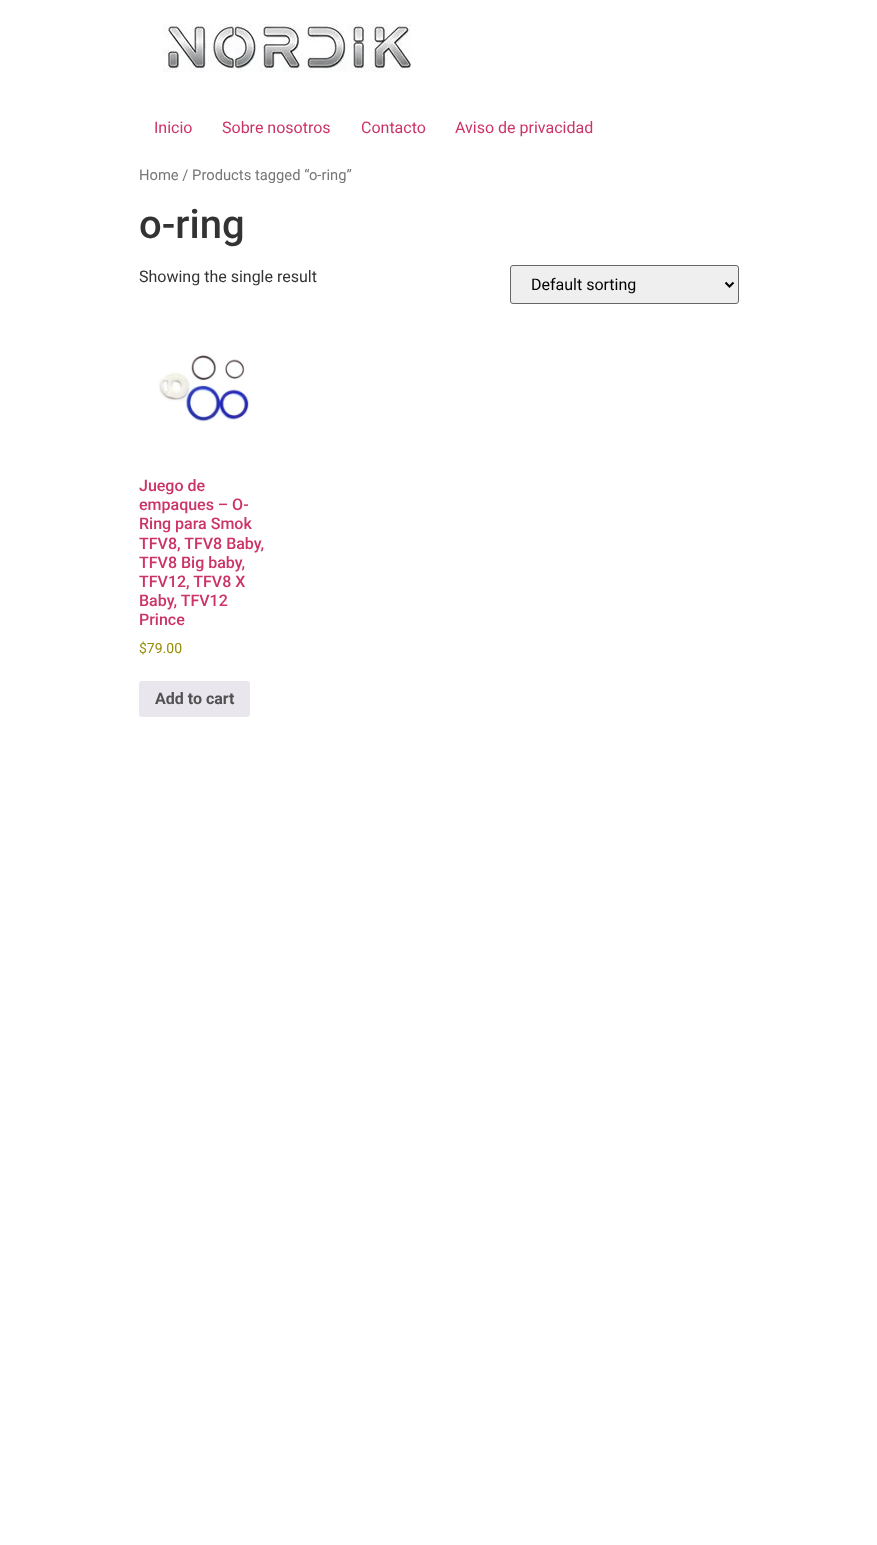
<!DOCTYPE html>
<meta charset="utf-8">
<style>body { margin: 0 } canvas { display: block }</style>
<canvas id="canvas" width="877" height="1545"></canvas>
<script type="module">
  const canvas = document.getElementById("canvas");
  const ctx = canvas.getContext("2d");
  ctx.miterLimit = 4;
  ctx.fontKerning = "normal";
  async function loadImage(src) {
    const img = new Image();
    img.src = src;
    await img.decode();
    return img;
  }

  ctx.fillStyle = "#ffffff";
  ctx.fillRect(0, 0, 877, 1545);
  ctx.drawImage(await loadImage("img1.png"), 163, 24, 248, 48);
  ctx.font = "16px Roboto";
  ctx.fillStyle = "#cc3366";
  ctx.fillText("Inicio", 154, 133);
  ctx.fillText("Sobre nosotros", 222, 133);
  ctx.fillText("Contacto", 361, 133);
  ctx.fillText("Aviso de privacidad", 455, 133);
  ctx.font = "14.75px Roboto";
  ctx.fillStyle = "#767676";
  ctx.fillText("Home / Products tagged “o-ring”", 139, 180);
  ctx.font = "500 40px Roboto";
  ctx.fillStyle = "#333333";
  ctx.fillText("o-ring", 139, 238);
  ctx.font = "16px Roboto";
  ctx.fillText("Showing the single result", 139, 282);
  ctx.fillStyle = "#efefef";
  ctx.beginPath();
  ctx.roundRect(510.5, 265.5, 228, 38, 2.5);
  ctx.fill();
  ctx.strokeStyle = "#666666";
  ctx.stroke();
  ctx.beginPath();
  ctx.moveTo(725.5, 282.5);
  ctx.lineTo(729.5, 286.5);
  ctx.lineTo(733.5, 282.5);
  ctx.strokeStyle = "#000000";
  ctx.lineWidth = 2;
  ctx.stroke();
  ctx.fillStyle = "#000000";
  ctx.fillText("Default sorting", 531, 290);
  ctx.drawImage(await loadImage("img2.png"), 159, 355, 92, 67);
  ctx.font = "500 16px Roboto";
  ctx.fillStyle = "#cc3366";
  ctx.fillText("Juego de", 139, 491);
  ctx.fillText("empaques – O-", 139, 510);
  ctx.fillText("Ring para Smok", 139, 529);
  ctx.fillText("TFV8, TFV8 Baby,", 139, 549);
  ctx.fillText("TFV8 Big baby,", 139, 568);
  ctx.fillText("TFV12, TFV8 X", 139, 587);
  ctx.fillText("Baby, TFV12", 139, 606);
  ctx.fillText("Prince", 139, 625);
  ctx.font = "14px Roboto";
  ctx.fillStyle = "#958e09";
  ctx.fillText("$79.00", 139, 653);
  ctx.fillStyle = "#e9e6ed";
  ctx.beginPath();
  ctx.roundRect(139, 681, 111, 36, 3);
  ctx.fill();
  ctx.font = "bold 16px Roboto";
  ctx.fillStyle = "#515151";
  ctx.fillText("Add to cart", 155, 704);
</script>
